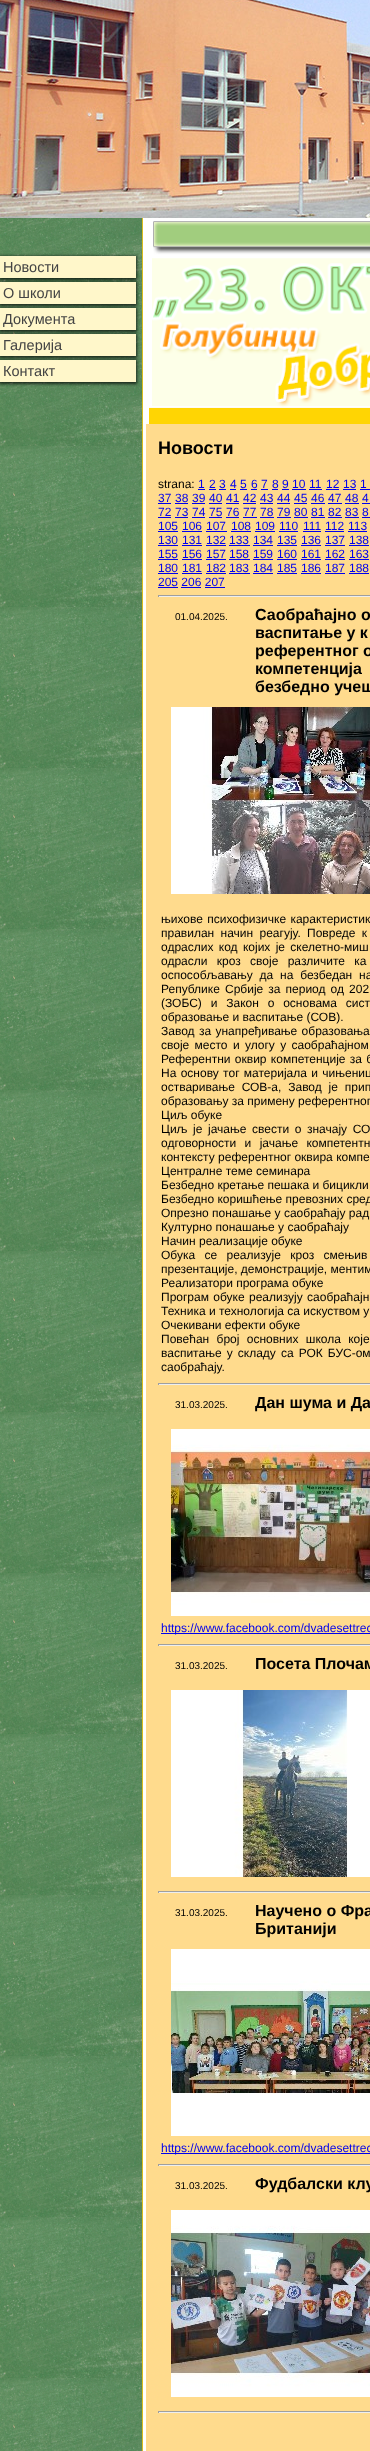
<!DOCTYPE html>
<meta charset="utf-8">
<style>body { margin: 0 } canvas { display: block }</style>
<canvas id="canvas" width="370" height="2451"></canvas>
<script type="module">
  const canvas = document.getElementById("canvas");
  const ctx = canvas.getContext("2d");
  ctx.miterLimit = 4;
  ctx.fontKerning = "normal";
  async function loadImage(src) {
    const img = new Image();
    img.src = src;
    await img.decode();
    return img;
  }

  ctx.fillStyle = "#ffffff";
  ctx.fillRect(0, 0, 370, 2451);
  ctx.drawImage(await loadImage("img1.png"), 0, 218, 143, 2233);
  ctx.drawImage(await loadImage("img2.png"), 0, 0, 370, 218);
  ctx.fillStyle = "rgba(0, 0, 0, 0.7)";
  ctx.filter = "blur(1.5px)";
  ctx.beginPath();
  ctx.rect(-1, 256, 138, 24);
  ctx.fill();
  ctx.filter = "none";
  ctx.fillStyle = "#fff7ca";
  ctx.fillRect(0, 256, 136, 22);
  ctx.font = "14.5px Liberation Sans";
  ctx.fillStyle = "#444444";
  ctx.fillText("Новости", 3, 272);
  ctx.fillStyle = "rgba(0, 0, 0, 0.7)";
  ctx.filter = "blur(1.5px)";
  ctx.beginPath();
  ctx.rect(-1, 282, 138, 24);
  ctx.fill();
  ctx.filter = "none";
  ctx.fillStyle = "#fff7ca";
  ctx.fillRect(0, 282, 136, 22);
  ctx.fillStyle = "#444444";
  ctx.fillText("О школи", 3, 298);
  ctx.fillStyle = "rgba(0, 0, 0, 0.7)";
  ctx.filter = "blur(1.5px)";
  ctx.beginPath();
  ctx.rect(-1, 308, 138, 24);
  ctx.fill();
  ctx.filter = "none";
  ctx.fillStyle = "#fff7ca";
  ctx.fillRect(0, 308, 136, 22);
  ctx.fillStyle = "#444444";
  ctx.fillText("Документа", 3, 324);
  ctx.fillStyle = "rgba(0, 0, 0, 0.7)";
  ctx.filter = "blur(1.5px)";
  ctx.beginPath();
  ctx.rect(-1, 334, 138, 24);
  ctx.fill();
  ctx.filter = "none";
  ctx.fillStyle = "#fff7ca";
  ctx.fillRect(0, 334, 136, 22);
  ctx.fillStyle = "#444444";
  ctx.fillText("Галерија", 3, 350);
  ctx.fillStyle = "rgba(0, 0, 0, 0.7)";
  ctx.filter = "blur(1.5px)";
  ctx.beginPath();
  ctx.rect(-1, 360, 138, 24);
  ctx.fill();
  ctx.filter = "none";
  ctx.fillStyle = "#fff7ca";
  ctx.fillRect(0, 360, 136, 22);
  ctx.fillStyle = "#444444";
  ctx.fillText("Контакт", 3, 376);
  ctx.drawImage(await loadImage("img3.png"), 149, 221, 221, 203);
  ctx.fillStyle = "#ffdb8d";
  ctx.fillRect(146, 424, 224, 2027);
  ctx.font = "bold 18px Liberation Sans";
  ctx.fillStyle = "#000000";
  ctx.fillText("Новости", 158, 454);
  ctx.font = "12px Liberation Sans";
  ctx.fillText("strana:", 158, 488);
  ctx.fillStyle = "#0000ee";
  ctx.fillText("1", 198, 488);
  ctx.fillRect(198, 489, 7, 1);
  ctx.fillText("2", 209, 488);
  ctx.fillRect(209, 489, 7, 1);
  ctx.fillText("3", 219, 488);
  ctx.fillRect(219, 489, 7, 1);
  ctx.fillText("4", 230, 488);
  ctx.fillRect(230, 489, 6, 1);
  ctx.fillText("5", 240, 488);
  ctx.fillRect(240, 489, 7, 1);
  ctx.fillText("6", 251, 488);
  ctx.fillRect(251, 489, 6, 1);
  ctx.fillText("7", 261, 488);
  ctx.fillRect(261, 489, 7, 1);
  ctx.fillText("8", 272, 488);
  ctx.fillRect(272, 489, 6, 1);
  ctx.fillText("9", 282, 488);
  ctx.fillRect(282, 489, 7, 1);
  ctx.fillText("10", 292, 488);
  ctx.fillRect(292, 489, 14, 1);
  ctx.fillText("11", 309, 488);
  ctx.fillRect(309, 489, 13, 1);
  ctx.fillText("12", 326, 488);
  ctx.fillRect(326, 489, 13, 1);
  ctx.fillText("13", 343, 488);
  ctx.fillRect(343, 489, 13, 1);
  ctx.fillText("1", 360, 488);
  ctx.fillRect(360, 489, 10, 1);
  ctx.fillText("37", 158, 502);
  ctx.fillRect(158, 503, 13, 1);
  ctx.fillText("38", 175, 502);
  ctx.fillRect(175, 503, 13, 1);
  ctx.fillText("39", 192, 502);
  ctx.fillRect(192, 503, 13, 1);
  ctx.fillText("40", 209, 502);
  ctx.fillRect(209, 503, 13, 1);
  ctx.fillText("41", 226, 502);
  ctx.fillRect(226, 503, 13, 1);
  ctx.fillText("42", 243, 502);
  ctx.fillRect(243, 503, 13, 1);
  ctx.fillText("43", 260, 502);
  ctx.fillRect(260, 503, 13, 1);
  ctx.fillText("44", 277, 502);
  ctx.fillRect(277, 503, 13, 1);
  ctx.fillText("45", 294, 502);
  ctx.fillRect(294, 503, 13, 1);
  ctx.fillText("46", 311, 502);
  ctx.fillRect(311, 503, 14, 1);
  ctx.fillText("47", 328, 502);
  ctx.fillRect(328, 503, 14, 1);
  ctx.fillText("48", 345, 502);
  ctx.fillRect(345, 503, 14, 1);
  ctx.fillText("4", 362, 502);
  ctx.fillRect(362, 503, 8, 1);
  ctx.fillText("72", 158, 516);
  ctx.fillRect(158, 517, 13, 1);
  ctx.fillText("73", 175, 516);
  ctx.fillRect(175, 517, 13, 1);
  ctx.fillText("74", 192, 516);
  ctx.fillRect(192, 517, 13, 1);
  ctx.fillText("75", 209, 516);
  ctx.fillRect(209, 517, 13, 1);
  ctx.fillText("76", 226, 516);
  ctx.fillRect(226, 517, 13, 1);
  ctx.fillText("77", 243, 516);
  ctx.fillRect(243, 517, 14, 1);
  ctx.fillText("78", 260, 516);
  ctx.fillRect(260, 517, 14, 1);
  ctx.fillText("79", 277, 516);
  ctx.fillRect(277, 517, 14, 1);
  ctx.fillText("80", 294, 516);
  ctx.fillRect(294, 517, 14, 1);
  ctx.fillText("81", 311, 516);
  ctx.fillRect(311, 517, 14, 1);
  ctx.fillText("82", 328, 516);
  ctx.fillRect(328, 517, 14, 1);
  ctx.fillText("83", 345, 516);
  ctx.fillRect(345, 517, 14, 1);
  ctx.fillText("8", 362, 516);
  ctx.fillRect(362, 517, 8, 1);
  ctx.fillText("105", 158, 530);
  ctx.fillRect(158, 531, 20, 1);
  ctx.fillText("106", 182, 530);
  ctx.fillRect(182, 531, 20, 1);
  ctx.fillText("107", 206, 530);
  ctx.fillRect(206, 531, 21, 1);
  ctx.fillText("108", 231, 530);
  ctx.fillRect(231, 531, 20, 1);
  ctx.fillText("109", 255, 530);
  ctx.fillRect(255, 531, 20, 1);
  ctx.fillText("110", 279, 530);
  ctx.fillRect(279, 531, 19, 1);
  ctx.fillText("111", 303, 530);
  ctx.fillRect(303, 531, 18, 1);
  ctx.fillText("112", 325, 530);
  ctx.fillRect(325, 531, 19, 1);
  ctx.fillText("113", 348, 530);
  ctx.fillRect(348, 531, 19, 1);
  ctx.fillText("130", 158, 544);
  ctx.fillRect(158, 545, 20, 1);
  ctx.fillText("131", 182, 544);
  ctx.fillRect(182, 545, 20, 1);
  ctx.fillText("132", 206, 544);
  ctx.fillRect(206, 545, 20, 1);
  ctx.fillText("133", 229, 544);
  ctx.fillRect(229, 545, 21, 1);
  ctx.fillText("134", 253, 544);
  ctx.fillRect(253, 545, 20, 1);
  ctx.fillText("135", 277, 544);
  ctx.fillRect(277, 545, 20, 1);
  ctx.fillText("136", 301, 544);
  ctx.fillRect(301, 545, 20, 1);
  ctx.fillText("137", 325, 544);
  ctx.fillRect(325, 545, 20, 1);
  ctx.fillText("138", 349, 544);
  ctx.fillRect(349, 545, 20, 1);
  ctx.fillText("155", 158, 558);
  ctx.fillRect(158, 559, 20, 1);
  ctx.fillText("156", 182, 558);
  ctx.fillRect(182, 559, 20, 1);
  ctx.fillText("157", 206, 558);
  ctx.fillRect(206, 559, 20, 1);
  ctx.fillText("158", 229, 558);
  ctx.fillRect(229, 559, 21, 1);
  ctx.fillText("159", 253, 558);
  ctx.fillRect(253, 559, 20, 1);
  ctx.fillText("160", 277, 558);
  ctx.fillRect(277, 559, 20, 1);
  ctx.fillText("161", 301, 558);
  ctx.fillRect(301, 559, 20, 1);
  ctx.fillText("162", 325, 558);
  ctx.fillRect(325, 559, 20, 1);
  ctx.fillText("163", 349, 558);
  ctx.fillRect(349, 559, 20, 1);
  ctx.fillText("180", 158, 572);
  ctx.fillRect(158, 573, 20, 1);
  ctx.fillText("181", 182, 572);
  ctx.fillRect(182, 573, 20, 1);
  ctx.fillText("182", 206, 572);
  ctx.fillRect(206, 573, 20, 1);
  ctx.fillText("183", 229, 572);
  ctx.fillRect(229, 573, 21, 1);
  ctx.fillText("184", 253, 572);
  ctx.fillRect(253, 573, 20, 1);
  ctx.fillText("185", 277, 572);
  ctx.fillRect(277, 573, 20, 1);
  ctx.fillText("186", 301, 572);
  ctx.fillRect(301, 573, 20, 1);
  ctx.fillText("187", 325, 572);
  ctx.fillRect(325, 573, 20, 1);
  ctx.fillText("188", 349, 572);
  ctx.fillRect(349, 573, 20, 1);
  ctx.fillText("205 206 207", 158, 586);
  ctx.fillRect(158, 587, 20, 1);
  ctx.fillRect(181, 587, 20, 1);
  ctx.fillRect(205, 587, 20, 1);
  ctx.fillStyle = "#9f9f9f";
  ctx.fillRect(158, 595, 212, 1);
  ctx.fillStyle = "#eeeeee";
  ctx.fillRect(158, 596, 212, 1);
  ctx.fillStyle = "#9f9f9f";
  ctx.fillRect(158, 595, 1, 2);
  ctx.font = "10px Liberation Sans";
  ctx.fillStyle = "#000000";
  ctx.fillText("01.04.2025.", 175, 620);
  ctx.font = "bold 16px Liberation Sans";
  ctx.fillText("Саобраћајно о", 255, 620);
  ctx.fillText("васпитање у к", 255, 638);
  ctx.fillText("референтног о", 255, 656);
  ctx.fillText("компетенција", 255, 674);
  ctx.fillText("безбедно учеш", 255, 692);
  ctx.drawImage(await loadImage("img4.png"), 171, 707, 199, 187);
  ctx.wordSpacing = "1px";
  ctx.font = "12px Liberation Sans";
  ctx.fillText("њихове психофизичке карактеристик", 161, 923);
  ctx.wordSpacing = "3px";
  ctx.fillText("правилан начин реагују. Повреде к", 161, 937);
  ctx.wordSpacing = "2px";
  ctx.fillText("одраслих код којих је скелетно-миш", 161, 951);
  ctx.wordSpacing = "6px";
  ctx.fillText("одрасли кроз своје различите ка", 161, 965);
  ctx.wordSpacing = "3.5px";
  ctx.fillText("оспособљавању да на безбедан на", 161, 979);
  ctx.wordSpacing = "1.75px";
  ctx.fillText("Републике Србије за период од 202", 161, 993);
  ctx.wordSpacing = "5.5px";
  ctx.fillText("(ЗОБС) и Закон о основама сист", 161, 1007);
  ctx.wordSpacing = "0px";
  ctx.fillText("образовање и васпитање (СОВ).", 161, 1021);
  ctx.wordSpacing = "1px";
  ctx.fillText("Завод за унапређивање образовања", 161, 1035);
  ctx.wordSpacing = "2px";
  ctx.fillText("своје место и улогу у саобраћајном", 161, 1049);
  ctx.wordSpacing = "1px";
  ctx.fillText("Референтни оквир компетенције за б", 161, 1063);
  ctx.fillText("На основу тог материјала и чињениц", 161, 1077);
  ctx.wordSpacing = "3.5px";
  ctx.fillText("остваривање СОВ-а, Завод је прип", 161, 1091);
  ctx.wordSpacing = "0px";
  ctx.fillText("образовању за примену референтног", 161, 1105);
  ctx.fillText("Циљ обуке", 161, 1119);
  ctx.wordSpacing = "2.25px";
  ctx.fillText("Циљ је јачање свести о значају СО", 161, 1133);
  ctx.wordSpacing = "5px";
  ctx.fillText("одговорности и јачање компетентн", 161, 1147);
  ctx.wordSpacing = "0px";
  ctx.fillText("контексту референтног оквира компе", 161, 1161);
  ctx.fillText("Централне теме семинара", 161, 1175);
  ctx.fillText("Безбедно кретање пешака и бицикли", 161, 1189);
  ctx.fillText("Безбедно коришћење превозних сред", 161, 1203);
  ctx.fillText("Опрезно понашање у саобраћају рад", 161, 1217);
  ctx.fillText("Културно понашање у саобраћају", 161, 1231);
  ctx.fillText("Начин реализације обуке", 161, 1245);
  ctx.wordSpacing = "6px";
  ctx.fillText("Обука се реализује кроз смењив", 161, 1259);
  ctx.wordSpacing = "0px";
  ctx.fillText("презентације, демонстрације, ментим", 161, 1273);
  ctx.fillText("Реализатори програма обуке", 161, 1287);
  ctx.wordSpacing = "1px";
  ctx.fillText("Програм обуке реализују саобраћајн", 161, 1301);
  ctx.wordSpacing = "0px";
  ctx.fillText("Техника и технологија са искуством у", 161, 1315);
  ctx.fillText("Очекивани ефекти обуке", 161, 1329);
  ctx.wordSpacing = "4px";
  ctx.fillText("Повећан број основних школа које", 161, 1343);
  ctx.wordSpacing = "1.75px";
  ctx.fillText("васпитање у складу са РОК БУС-ом", 161, 1357);
  ctx.wordSpacing = "0px";
  ctx.fillText("саобраћају.", 161, 1371);
  ctx.fillStyle = "#9f9f9f";
  ctx.fillRect(158, 1383, 212, 1);
  ctx.fillStyle = "#eeeeee";
  ctx.fillRect(158, 1384, 212, 1);
  ctx.fillStyle = "#9f9f9f";
  ctx.fillRect(158, 1383, 1, 2);
  ctx.font = "10px Liberation Sans";
  ctx.fillStyle = "#000000";
  ctx.fillText("31.03.2025.", 175, 1408);
  ctx.font = "bold 16px Liberation Sans";
  ctx.fillText("Дан шума и Да", 255, 1408);
  ctx.drawImage(await loadImage("img5.png"), 171, 1429, 199, 187);
  ctx.fillStyle = "#0000ee";
  ctx.fillRect(161, 1633, 209, 1);
  ctx.font = "12px Liberation Sans";
  ctx.fillText("https://www.facebook.com/dvadesettrec", 161, 1632);
  ctx.fillStyle = "#9f9f9f";
  ctx.fillRect(158, 1644, 212, 1);
  ctx.fillStyle = "#eeeeee";
  ctx.fillRect(158, 1645, 212, 1);
  ctx.fillStyle = "#9f9f9f";
  ctx.fillRect(158, 1644, 1, 2);
  ctx.font = "10px Liberation Sans";
  ctx.fillStyle = "#000000";
  ctx.fillText("31.03.2025.", 175, 1669);
  ctx.font = "bold 16px Liberation Sans";
  ctx.fillText("Посета Плочам", 255, 1669);
  ctx.drawImage(await loadImage("img6.png"), 171, 1690, 199, 187);
  ctx.fillStyle = "#9f9f9f";
  ctx.fillRect(158, 1891, 212, 1);
  ctx.fillStyle = "#eeeeee";
  ctx.fillRect(158, 1892, 212, 1);
  ctx.fillStyle = "#9f9f9f";
  ctx.fillRect(158, 1891, 1, 2);
  ctx.font = "10px Liberation Sans";
  ctx.fillStyle = "#000000";
  ctx.fillText("31.03.2025.", 175, 1916);
  ctx.font = "bold 16px Liberation Sans";
  ctx.fillText("Научено о Фра", 255, 1916);
  ctx.fillText("Британији", 255, 1934);
  ctx.drawImage(await loadImage("img7.png"), 171, 1949, 199, 187);
  ctx.fillStyle = "#0000ee";
  ctx.fillRect(161, 2153, 209, 1);
  ctx.font = "12px Liberation Sans";
  ctx.fillText("https://www.facebook.com/dvadesettrec", 161, 2152);
  ctx.fillStyle = "#9f9f9f";
  ctx.fillRect(158, 2164, 212, 1);
  ctx.fillStyle = "#eeeeee";
  ctx.fillRect(158, 2165, 212, 1);
  ctx.fillStyle = "#9f9f9f";
  ctx.fillRect(158, 2164, 1, 2);
  ctx.font = "10px Liberation Sans";
  ctx.fillStyle = "#000000";
  ctx.fillText("31.03.2025.", 175, 2189);
  ctx.font = "bold 16px Liberation Sans";
  ctx.fillText("Фудбалски клу", 255, 2189);
  ctx.drawImage(await loadImage("img8.png"), 171, 2210, 199, 187);
  ctx.fillStyle = "#9f9f9f";
  ctx.fillRect(158, 2411, 212, 1);
  ctx.fillStyle = "#eeeeee";
  ctx.fillRect(158, 2412, 212, 1);
  ctx.fillStyle = "#9f9f9f";
  ctx.fillRect(158, 2411, 1, 2);
</script>
